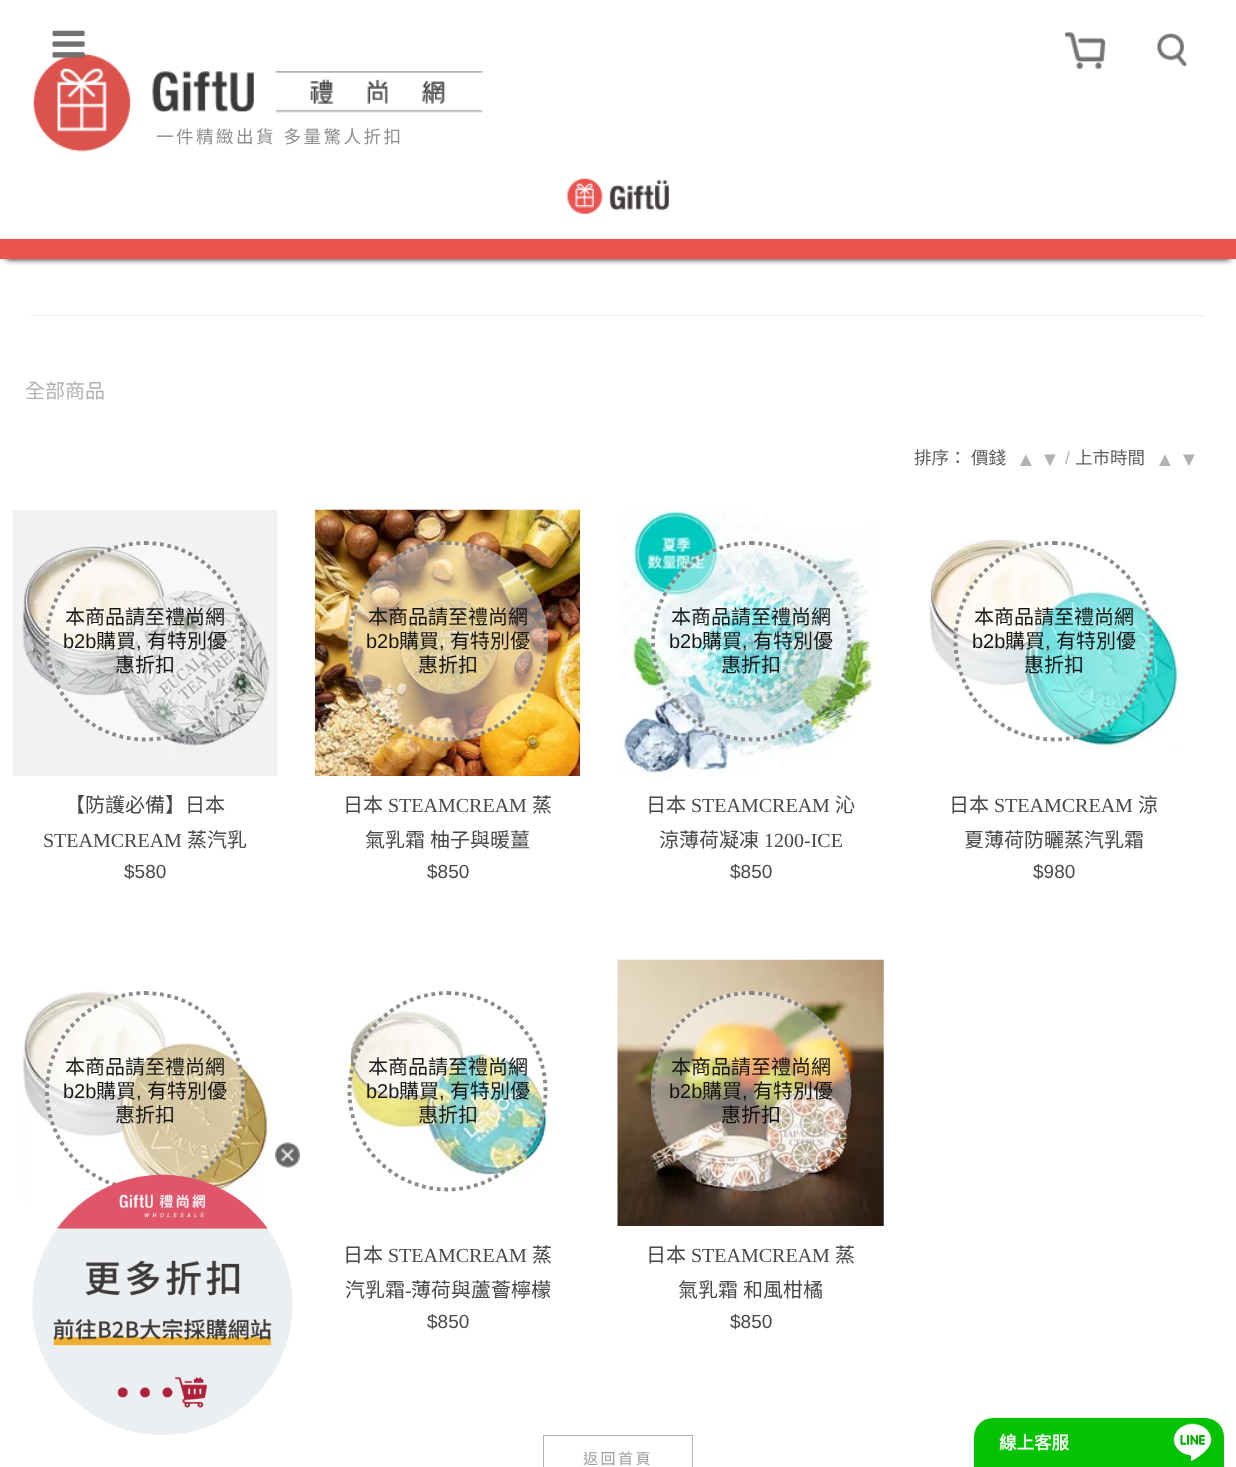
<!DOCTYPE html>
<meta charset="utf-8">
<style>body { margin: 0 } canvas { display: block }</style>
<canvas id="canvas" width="1236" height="1467"></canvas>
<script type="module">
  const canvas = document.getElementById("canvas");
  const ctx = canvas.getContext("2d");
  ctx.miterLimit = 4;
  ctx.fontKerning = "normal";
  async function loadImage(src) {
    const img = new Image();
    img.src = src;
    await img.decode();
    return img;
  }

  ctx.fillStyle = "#ffffff";
  ctx.fillRect(0, 0, 1236, 1467);
  ctx.fillStyle = "#000000";
  ctx.filter = "blur(3px)";
  ctx.beginPath();
  ctx.rect(6, 13, 1224, 246);
  ctx.fill();
  ctx.filter = "none";
  ctx.fillStyle = "#ffffff";
  ctx.fillRect(0, 6, 1236, 233);
  ctx.fillStyle = "#ea5550";
  ctx.fillRect(0, 239, 1236, 20);
  ctx.drawImage(await loadImage("img4.png"), 33, 53, 450, 99);
  ctx.drawImage(await loadImage("img1.png"), 52, 30, 33, 28);
  ctx.drawImage(await loadImage("img2.png"), 1065, 32, 41, 37);
  ctx.drawImage(await loadImage("img3.png"), 1156, 33, 31, 34);
  ctx.letterSpacing = "2.5px";
  ctx.wordSpacing = "1px";
  ctx.font = "17.5px Noto Sans CJK TC";
  ctx.fillStyle = "#928d8d";
  ctx.fillText("一件精緻出貨 多量驚人折扣", 156, 143);
  ctx.drawImage(await loadImage("img5.png"), 567, 178, 102, 36);
  ctx.fillStyle = "#eeeeee";
  ctx.fillRect(31, 315, 1174, 1);
  ctx.letterSpacing = "0px";
  ctx.wordSpacing = "0px";
  ctx.font = "20px Noto Sans CJK TC";
  ctx.fillStyle = "#b2b2b2";
  ctx.fillText("全部商品", 25, 398);
  ctx.font = "17.5px Noto Sans CJK TC";
  ctx.fillStyle = "#5f5f5f";
  ctx.fillText("排序：", 914, 464);
  ctx.fillText("價錢", 971, 464);
  ctx.font = "20px Liberation Sans";
  ctx.fillStyle = "#b2b2b2";
  ctx.fillText("▲", 1016, 466);
  ctx.fillText("▼", 1040, 466);
  ctx.font = "17.5px Liberation Sans";
  ctx.fillText("/", 1065, 464);
  ctx.font = "17.5px Noto Sans CJK TC";
  ctx.fillStyle = "#5f5f5f";
  ctx.fillText("上市時間", 1075, 464);
  ctx.font = "20px Liberation Sans";
  ctx.fillStyle = "#b2b2b2";
  ctx.fillText("▲", 1155, 466);
  ctx.fillText("▼", 1179, 466);
  ctx.drawImage(await loadImage("img6.png"), 12, 510, 266, 266);
  ctx.fillStyle = "rgba(255, 255, 255, 0.45)";
  ctx.beginPath();
  ctx.arc(145, 641, 100, 0, Math.PI * 2);
  ctx.fill();
  ctx.beginPath();
  ctx.moveTo(145, 543);
  ctx.bezierCurveTo(199, 543, 243, 587, 243, 641);
  ctx.bezierCurveTo(243, 695.5, 199, 739.5, 145, 739.5);
  ctx.bezierCurveTo(91, 739.5, 47, 695.5, 47, 641);
  ctx.bezierCurveTo(47, 587, 91, 543, 145, 543);
  ctx.closePath();
  ctx.strokeStyle = "rgba(125, 125, 125, 0.9)";
  ctx.lineWidth = 3.8;
  ctx.setLineDash([3.75, 3.75]);
  ctx.stroke();
  ctx.font = "20px Noto Sans CJK TC";
  ctx.fillStyle = "#171717";
  ctx.fillText("本商品請至禮尚網", 65, 624);
  ctx.font = "20px Liberation Sans";
  ctx.fillText("b2b", 63, 648);
  ctx.font = "20px Noto Sans CJK TC";
  ctx.fillText("購買", 96, 648);
  ctx.font = "20px Liberation Sans";
  ctx.fillText(",", 136, 648);
  ctx.font = "20px Noto Sans CJK TC";
  ctx.fillText("有特別優", 147, 648);
  ctx.fillText("惠折扣", 115, 672);
  ctx.fillStyle = "#484848";
  ctx.fillText("【防護必備】日本", 65, 812);
  ctx.font = "20px Liberation Serif";
  ctx.fillText("STEAMCREAM", 43, 847);
  ctx.font = "20px Noto Sans CJK TC";
  ctx.fillText("蒸汽乳", 187, 847);
  ctx.font = "19px Liberation Sans";
  ctx.fillText("$580", 124, 878);
  ctx.drawImage(await loadImage("img7.png"), 315, 509, 265, 267);
  ctx.fillStyle = "rgba(255, 255, 255, 0.45)";
  ctx.beginPath();
  ctx.arc(448, 641, 100, 0, Math.PI * 2);
  ctx.fill();
  ctx.beginPath();
  ctx.moveTo(447.5, 543);
  ctx.bezierCurveTo(501.5, 543, 545.5, 587, 545.5, 641);
  ctx.bezierCurveTo(545.5, 695.5, 501.5, 739.5, 447.5, 739.5);
  ctx.bezierCurveTo(393.5, 739.5, 349.5, 695.5, 349.5, 641);
  ctx.bezierCurveTo(349.5, 587, 393.5, 543, 447.5, 543);
  ctx.closePath();
  ctx.stroke();
  ctx.font = "20px Noto Sans CJK TC";
  ctx.fillStyle = "#15130e";
  ctx.fillText("本商品請至禮尚網", 368, 624);
  ctx.font = "20px Liberation Sans";
  ctx.fillText("b2b", 366, 648);
  ctx.font = "20px Noto Sans CJK TC";
  ctx.fillText("購買", 399, 648);
  ctx.font = "20px Liberation Sans";
  ctx.fillText(",", 439, 648);
  ctx.font = "20px Noto Sans CJK TC";
  ctx.fillText("有特別優", 450, 648);
  ctx.fillText("惠折扣", 418, 672);
  ctx.fillStyle = "#484848";
  ctx.fillText("日本", 343, 812);
  ctx.font = "20px Liberation Serif";
  ctx.fillText("STEAMCREAM", 388, 812);
  ctx.font = "20px Noto Sans CJK TC";
  ctx.fillText("蒸", 532, 812);
  ctx.fillText("氣乳霜", 365, 847);
  ctx.fillText("柚子與暖薑", 430, 847);
  ctx.font = "19px Liberation Sans";
  ctx.fillText("$850", 427, 878);
  ctx.drawImage(await loadImage("img8.png"), 619, 510, 260, 266);
  ctx.fillStyle = "rgba(255, 255, 255, 0.45)";
  ctx.beginPath();
  ctx.arc(751, 641, 100, 0, Math.PI * 2);
  ctx.fill();
  ctx.beginPath();
  ctx.moveTo(751, 543);
  ctx.bezierCurveTo(805.5, 543, 849.5, 587, 849.5, 641);
  ctx.bezierCurveTo(849.5, 695.5, 805.5, 739.5, 751, 739.5);
  ctx.bezierCurveTo(697, 739.5, 653, 695.5, 653, 641);
  ctx.bezierCurveTo(653, 587, 697, 543, 751, 543);
  ctx.closePath();
  ctx.stroke();
  ctx.font = "20px Noto Sans CJK TC";
  ctx.fillStyle = "#171717";
  ctx.fillText("本商品請至禮尚網", 671, 624);
  ctx.font = "20px Liberation Sans";
  ctx.fillText("b2b", 669, 648);
  ctx.font = "20px Noto Sans CJK TC";
  ctx.fillStyle = "#111718";
  ctx.fillText("購買", 702, 648);
  ctx.font = "20px Liberation Sans";
  ctx.fillText(",", 742, 648);
  ctx.font = "20px Noto Sans CJK TC";
  ctx.fillStyle = "#171717";
  ctx.fillText("有特別優", 753, 648);
  ctx.fillStyle = "#111718";
  ctx.fillText("惠折扣", 721, 672);
  ctx.fillStyle = "#484848";
  ctx.fillText("日本", 646, 812);
  ctx.font = "20px Liberation Serif";
  ctx.fillText("STEAMCREAM", 691, 812);
  ctx.font = "20px Noto Sans CJK TC";
  ctx.fillText("沁", 835, 812);
  ctx.fillText("涼薄荷凝凍", 659, 847);
  ctx.font = "20px Liberation Serif";
  ctx.fillText("1200-ICE", 764, 847);
  ctx.font = "19px Liberation Sans";
  ctx.fillText("$850", 730, 878);
  ctx.drawImage(await loadImage("img9.png"), 929, 539, 253, 210);
  ctx.fillStyle = "rgba(255, 255, 255, 0.45)";
  ctx.beginPath();
  ctx.arc(1054, 641, 100, 0, Math.PI * 2);
  ctx.fill();
  ctx.beginPath();
  ctx.moveTo(1054, 543);
  ctx.bezierCurveTo(1108, 543, 1152, 587, 1152, 641);
  ctx.bezierCurveTo(1152, 695.5, 1108, 739.5, 1054, 739.5);
  ctx.bezierCurveTo(999.5, 739.5, 955.5, 695.5, 955.5, 641);
  ctx.bezierCurveTo(955.5, 587, 999.5, 543, 1054, 543);
  ctx.closePath();
  ctx.stroke();
  ctx.font = "20px Noto Sans CJK TC";
  ctx.fillStyle = "#171717";
  ctx.fillText("本商品請至禮尚網", 974, 624);
  ctx.font = "20px Liberation Sans";
  ctx.fillText("b2b", 972, 648);
  ctx.font = "20px Noto Sans CJK TC";
  ctx.fillText("購買", 1005, 648);
  ctx.font = "20px Liberation Sans";
  ctx.fillStyle = "#111718";
  ctx.fillText(",", 1045, 648);
  ctx.font = "20px Noto Sans CJK TC";
  ctx.fillText("有特別優", 1056, 648);
  ctx.fillText("惠折扣", 1024, 672);
  ctx.fillStyle = "#484848";
  ctx.fillText("日本", 949, 812);
  ctx.font = "20px Liberation Serif";
  ctx.fillText("STEAMCREAM", 994, 812);
  ctx.font = "20px Noto Sans CJK TC";
  ctx.fillText("涼", 1138, 812);
  ctx.fillText("夏薄荷防曬蒸汽乳霜", 964, 847);
  ctx.font = "19px Liberation Sans";
  ctx.fillText("$980", 1033, 878);
  ctx.drawImage(await loadImage("img10.png"), 22, 991, 247, 211);
  ctx.fillStyle = "rgba(255, 255, 255, 0.45)";
  ctx.beginPath();
  ctx.arc(145, 1091, 100, 0, Math.PI * 2);
  ctx.fill();
  ctx.beginPath();
  ctx.moveTo(145, 993);
  ctx.bezierCurveTo(199, 993, 243, 1037, 243, 1091);
  ctx.bezierCurveTo(243, 1145.5, 199, 1189.5, 145, 1189.5);
  ctx.bezierCurveTo(91, 1189.5, 47, 1145.5, 47, 1091);
  ctx.bezierCurveTo(47, 1037, 91, 993, 145, 993);
  ctx.closePath();
  ctx.stroke();
  ctx.font = "20px Noto Sans CJK TC";
  ctx.fillStyle = "#171717";
  ctx.fillText("本商品請至禮尚網", 65, 1074);
  ctx.font = "20px Liberation Sans";
  ctx.fillText("b2b", 63, 1098);
  ctx.font = "20px Noto Sans CJK TC";
  ctx.fillText("購買", 96, 1098);
  ctx.font = "20px Liberation Sans";
  ctx.fillStyle = "#15130e";
  ctx.fillText(",", 136, 1098);
  ctx.font = "20px Noto Sans CJK TC";
  ctx.fillText("有特別優", 147, 1098);
  ctx.fillStyle = "#171717";
  ctx.fillText("惠折扣", 115, 1122);
  ctx.drawImage(await loadImage("img11.png"), 343, 1008, 205, 170);
  ctx.fillStyle = "rgba(255, 255, 255, 0.45)";
  ctx.beginPath();
  ctx.arc(448, 1091, 100, 0, Math.PI * 2);
  ctx.fill();
  ctx.beginPath();
  ctx.moveTo(447.5, 993);
  ctx.bezierCurveTo(501.5, 993, 545.5, 1037, 545.5, 1091);
  ctx.bezierCurveTo(545.5, 1145.5, 501.5, 1189.5, 447.5, 1189.5);
  ctx.bezierCurveTo(393.5, 1189.5, 349.5, 1145.5, 349.5, 1091);
  ctx.bezierCurveTo(349.5, 1037, 393.5, 993, 447.5, 993);
  ctx.closePath();
  ctx.stroke();
  ctx.fillStyle = "#171717";
  ctx.fillText("本商品請至禮尚網", 368, 1074);
  ctx.font = "20px Liberation Sans";
  ctx.fillText("b2b", 366, 1098);
  ctx.font = "20px Noto Sans CJK TC";
  ctx.fillText("購買", 399, 1098);
  ctx.font = "20px Liberation Sans";
  ctx.fillStyle = "#15130e";
  ctx.fillText(",", 439, 1098);
  ctx.font = "20px Noto Sans CJK TC";
  ctx.fillStyle = "#111718";
  ctx.fillText("有特別優", 450, 1098);
  ctx.fillStyle = "#171717";
  ctx.fillText("惠折扣", 418, 1122);
  ctx.fillStyle = "#484848";
  ctx.fillText("日本", 343, 1262);
  ctx.font = "20px Liberation Serif";
  ctx.fillText("STEAMCREAM", 388, 1262);
  ctx.font = "20px Noto Sans CJK TC";
  ctx.fillText("蒸", 532, 1262);
  ctx.fillText("汽乳霜", 345, 1297);
  ctx.font = "20px Liberation Serif";
  ctx.fillText("-", 405, 1297);
  ctx.font = "20px Noto Sans CJK TC";
  ctx.fillText("薄荷與蘆薈檸檬", 411, 1297);
  ctx.font = "19px Liberation Sans";
  ctx.fillText("$850", 427, 1328);
  ctx.drawImage(await loadImage("img12.png"), 617, 959, 267, 267);
  ctx.fillStyle = "rgba(255, 255, 255, 0.45)";
  ctx.beginPath();
  ctx.arc(751, 1091, 100, 0, Math.PI * 2);
  ctx.fill();
  ctx.beginPath();
  ctx.moveTo(751, 993);
  ctx.bezierCurveTo(805.5, 993, 849.5, 1037, 849.5, 1091);
  ctx.bezierCurveTo(849.5, 1145.5, 805.5, 1189.5, 751, 1189.5);
  ctx.bezierCurveTo(697, 1189.5, 653, 1145.5, 653, 1091);
  ctx.bezierCurveTo(653, 1037, 697, 993, 751, 993);
  ctx.closePath();
  ctx.stroke();
  ctx.font = "20px Noto Sans CJK TC";
  ctx.fillStyle = "#15130e";
  ctx.fillText("本商品請至禮尚網", 671, 1074);
  ctx.font = "20px Liberation Sans";
  ctx.fillText("b2b", 669, 1098);
  ctx.font = "20px Noto Sans CJK TC";
  ctx.fillText("購買", 702, 1098);
  ctx.font = "20px Liberation Sans";
  ctx.fillStyle = "#0c0c0b";
  ctx.fillText(",", 742, 1098);
  ctx.font = "20px Noto Sans CJK TC";
  ctx.fillStyle = "#15130e";
  ctx.fillText("有特別優", 753, 1098);
  ctx.fillStyle = "#0c0c0b";
  ctx.fillText("惠折扣", 721, 1122);
  ctx.fillStyle = "#484848";
  ctx.fillText("日本", 646, 1262);
  ctx.font = "20px Liberation Serif";
  ctx.fillText("STEAMCREAM", 691, 1262);
  ctx.font = "20px Noto Sans CJK TC";
  ctx.fillText("蒸", 835, 1262);
  ctx.fillText("氣乳霜", 678, 1297);
  ctx.fillText("和風柑橘", 743, 1297);
  ctx.font = "19px Liberation Sans";
  ctx.fillText("$850", 730, 1328);
  ctx.strokeStyle = "#b2b2b2";
  ctx.lineWidth = 1;
  ctx.setLineDash([]);
  ctx.strokeRect(543.5, 1435.5, 149, 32);
  ctx.letterSpacing = "2.5px";
  ctx.font = "15px Noto Sans CJK TC";
  ctx.fillStyle = "#9f9f9f";
  ctx.fillText("返回首頁", 583, 1464);
  ctx.drawImage(await loadImage("img13.png"), 275, 1142, 25, 26);
  ctx.drawImage(await loadImage("img14.png"), 32, 1174, 261, 261);
  ctx.fillStyle = "#04c303";
  ctx.beginPath();
  ctx.moveTo(993, 1418);
  ctx.lineTo(1205, 1418);
  ctx.bezierCurveTo(1215.5, 1418, 1224, 1426.5, 1224, 1437);
  ctx.lineTo(1224, 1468);
  ctx.lineTo(974, 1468);
  ctx.lineTo(974, 1437);
  ctx.bezierCurveTo(974, 1426.5, 982.5, 1418, 993, 1418);
  ctx.closePath();
  ctx.fill();
  ctx.letterSpacing = "0px";
  ctx.font = "bold 17.5px Noto Sans CJK TC";
  ctx.fillStyle = "#ffffff";
  ctx.fillText("線上客服", 999, 1449);
  ctx.drawImage(await loadImage("img15.png"), 1173, 1423, 39, 39);
</script>
